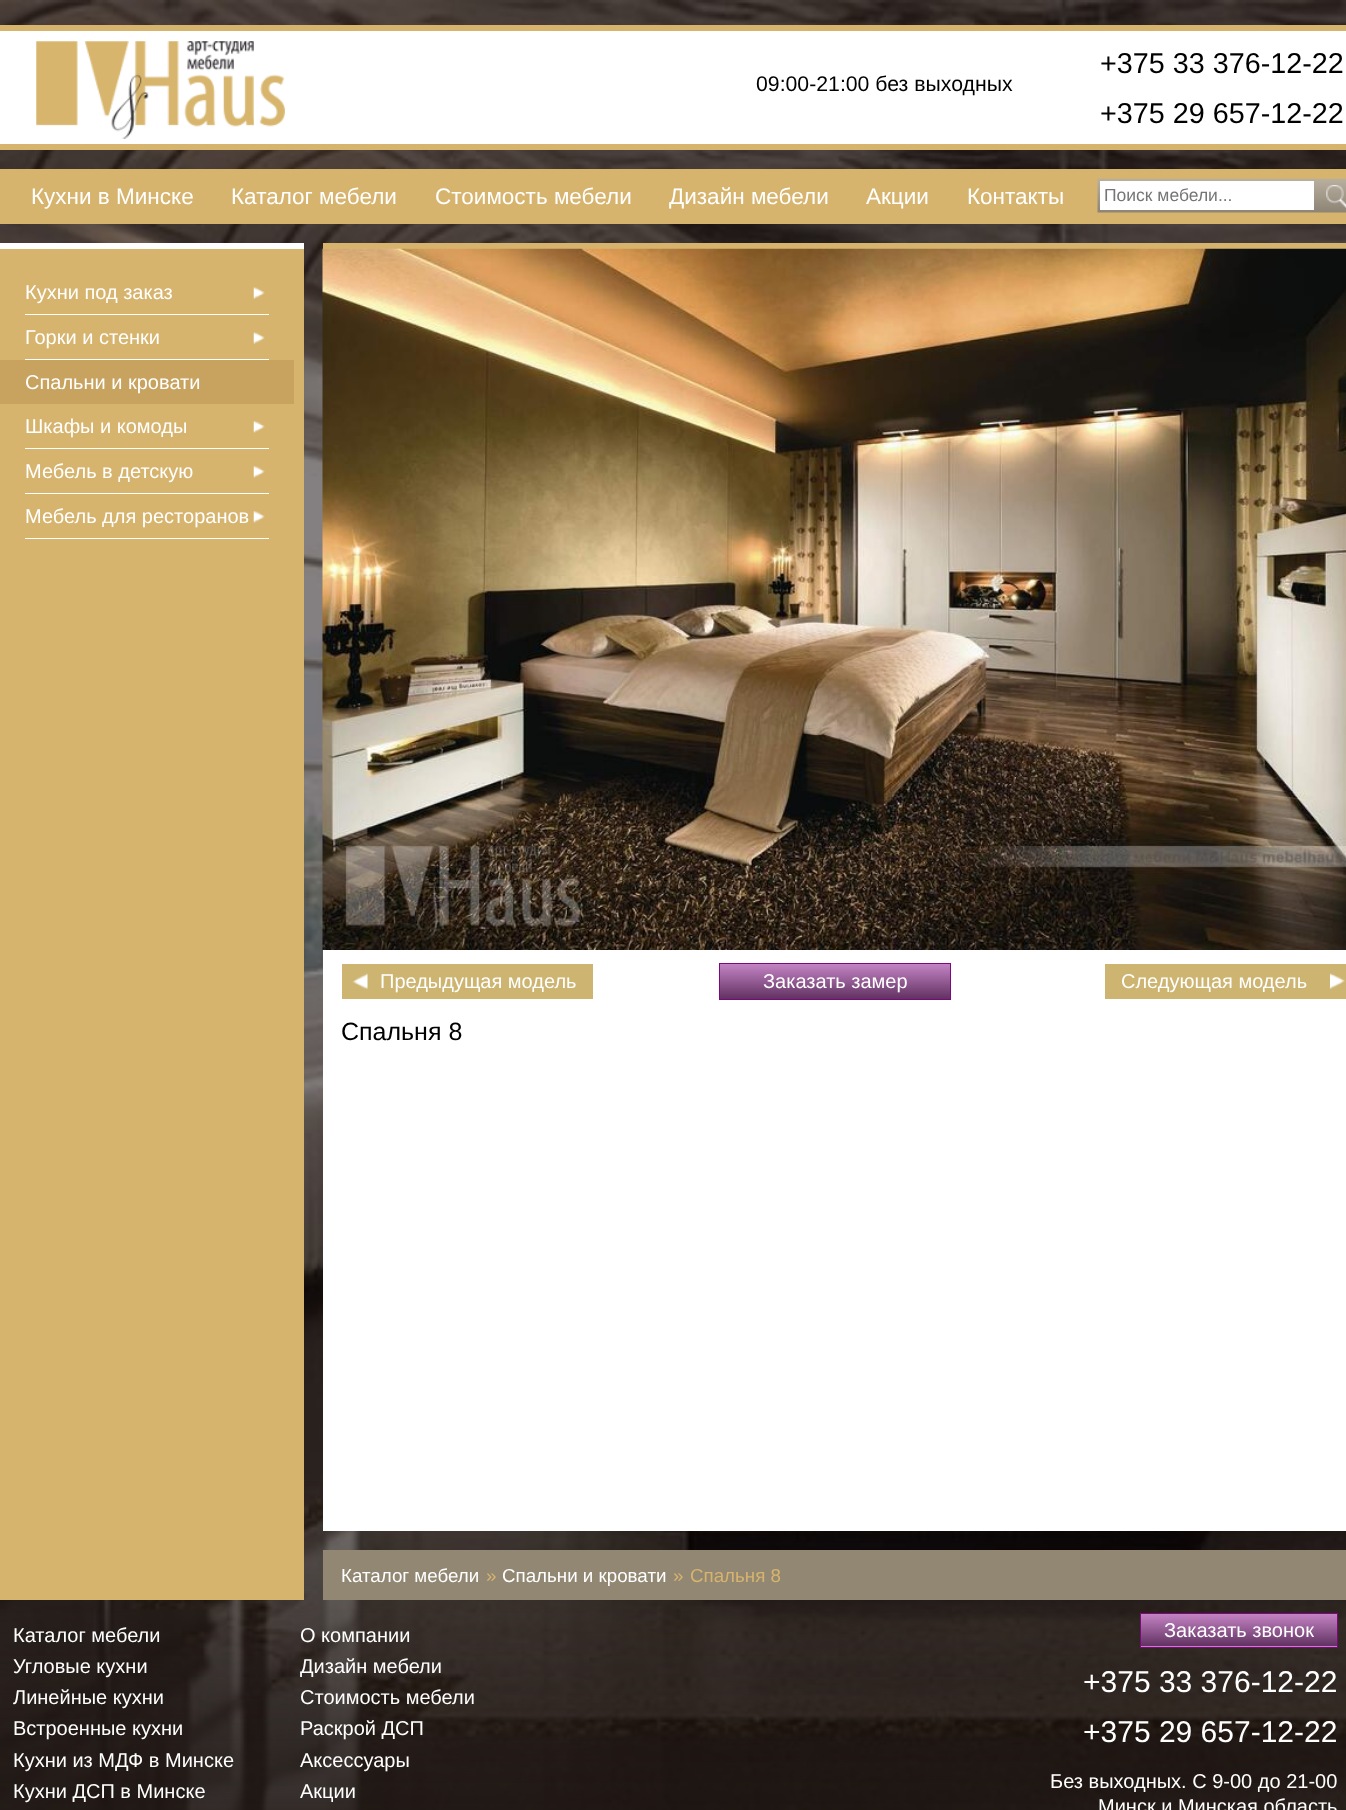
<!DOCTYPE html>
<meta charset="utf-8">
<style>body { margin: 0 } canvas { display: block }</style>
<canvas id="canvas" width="1346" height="1810"></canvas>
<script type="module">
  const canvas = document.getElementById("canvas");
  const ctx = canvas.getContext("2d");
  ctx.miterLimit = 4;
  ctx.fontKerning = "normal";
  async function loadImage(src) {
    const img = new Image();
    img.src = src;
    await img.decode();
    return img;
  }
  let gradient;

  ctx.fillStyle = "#ffffff";
  ctx.fillRect(0, 0, 1346, 1810);
  ctx.drawImage(await loadImage("img1.png"), 0, 0, 1346, 1810);
  ctx.fillRect(0, 31, 1346, 113);
  ctx.fillStyle = "#d7b46e";
  ctx.fillRect(0, 25, 1346, 6);
  ctx.fillRect(0, 144, 1346, 6);
  ctx.drawImage(await loadImage("img2.png"), 36, 41, 249, 98);
  ctx.font = "21.25px Liberation Sans";
  ctx.fillStyle = "#000000";
  ctx.fillText("09:00-21:00 без выходных", 756, 91);
  ctx.font = "28.75px Liberation Sans";
  ctx.fillText("+375 33 376-12-22", 1100, 73);
  ctx.fillText("+375 29 657-12-22", 1100, 123);
  ctx.fillStyle = "#d7b46e";
  ctx.fillRect(0, 169, 1346, 55);
  ctx.font = "22.5px Liberation Sans";
  ctx.fillStyle = "#ffffff";
  ctx.fillText("Кухни в Минске", 31, 204);
  ctx.fillText("Каталог мебели", 231, 204);
  ctx.fillText("Стоимость мебели", 435, 204);
  ctx.fillText("Дизайн мебели", 669, 204);
  ctx.fillText("Акции", 866, 204);
  ctx.fillText("Контакты", 967, 204);
  ctx.drawImage(await loadImage("img3.png"), 1097, 178, 249, 35);
  ctx.fillRect(1100, 181, 214, 29);
  ctx.font = "17.5px Liberation Sans";
  ctx.fillStyle = "#757575";
  ctx.fillText("Поиск мебели...", 1104, 201);
  ctx.drawImage(await loadImage("img4.png"), 1326, 185, 20, 23);
  ctx.fillStyle = "#d7b46e";
  ctx.fillRect(0, 249, 304, 1351);
  ctx.fillStyle = "#ffffff";
  ctx.fillRect(0, 243, 304, 6);
  ctx.drawImage(await loadImage("img5.png"), 253, 287, 12, 12);
  ctx.fillRect(25, 314, 244, 1);
  ctx.font = "20px Liberation Sans";
  ctx.fillText("Кухни под заказ", 25, 299);
  ctx.drawImage(await loadImage("img6.png"), 253, 332, 12, 12);
  ctx.fillRect(25, 359, 244, 1);
  ctx.fillText("Горки и стенки", 25, 344);
  ctx.fillStyle = "#c7a35f";
  ctx.fillRect(0, 360, 294, 44);
  ctx.fillStyle = "#ffffff";
  ctx.fillText("Спальни и кровати", 25, 389);
  ctx.drawImage(await loadImage("img7.png"), 253, 421, 12, 12);
  ctx.fillRect(25, 448, 244, 1);
  ctx.fillText("Шкафы и комоды", 25, 433);
  ctx.drawImage(await loadImage("img7.png"), 253, 466, 12, 12);
  ctx.fillRect(25, 493, 244, 1);
  ctx.fillText("Мебель в детскую", 25, 478);
  ctx.drawImage(await loadImage("img7.png"), 253, 511, 12, 12);
  ctx.fillRect(25, 538, 244, 1);
  ctx.fillText("Мебель для ресторанов", 25, 523);
  ctx.fillStyle = "#d7b46e";
  ctx.fillRect(323, 243, 1023, 6);
  ctx.drawImage(await loadImage("img8.png"), 322, 248, 1024, 702);
  ctx.fillStyle = "#ffffff";
  ctx.fillRect(323, 950, 1023, 581);
  ctx.fillStyle = "#cdb471";
  ctx.fillRect(342, 964, 251, 35);
  ctx.drawImage(await loadImage("img9.png"), 352, 973, 16, 16);
  ctx.fillStyle = "#ffffff";
  ctx.fillText("Предыдущая модель", 380, 988);
  gradient = ctx.createLinearGradient(835, 964, 835, 999);
  gradient.addColorStop(0, "#c483c4");
  gradient.addColorStop(1, "#613261");
  ctx.fillStyle = gradient;
  ctx.fillRect(720, 964, 230, 35);
  ctx.strokeStyle = "#7e077e";
  ctx.strokeRect(719.5, 963.5, 231, 36);
  ctx.fillStyle = "#ffffff";
  ctx.fillText("Заказать замер", 763, 988);
  ctx.fillStyle = "#cdb471";
  ctx.fillRect(1105, 964, 241, 35);
  ctx.drawImage(await loadImage("img10.png"), 1330, 973, 15, 16);
  ctx.fillStyle = "#ffffff";
  ctx.fillText("Следующая модель", 1121, 988);
  ctx.font = "25px Liberation Sans";
  ctx.fillStyle = "#000000";
  ctx.fillText("Спальня 8", 341, 1040);
  ctx.fillStyle = "#918773";
  ctx.fillRect(323, 1550, 1023, 50);
  ctx.font = "18.75px Liberation Sans";
  ctx.fillStyle = "#ffffff";
  ctx.fillText("Каталог мебели", 341, 1582);
  ctx.fillStyle = "#d7b46e";
  ctx.fillText("»", 486, 1582);
  ctx.fillStyle = "#ffffff";
  ctx.fillText("Спальни и кровати", 502, 1582);
  ctx.fillStyle = "#d7b46e";
  ctx.fillText("»", 673, 1582);
  ctx.fillText("Спальня 8", 690, 1582);
  ctx.font = "20px Liberation Sans";
  ctx.fillStyle = "#ffffff";
  ctx.fillText("Каталог мебели", 13, 1642);
  ctx.fillText("Угловые кухни", 13, 1673);
  ctx.fillText("Линейные кухни", 13, 1704);
  ctx.fillText("Встроенные кухни", 13, 1735);
  ctx.fillText("Кухни из МДФ в Минске", 13, 1767);
  ctx.fillText("Кухни ДСП в Минске", 13, 1798);
  ctx.fillText("О компании", 300, 1642);
  ctx.fillText("Дизайн мебели", 300, 1673);
  ctx.fillText("Стоимость мебели", 300, 1704);
  ctx.fillText("Раскрой ДСП", 300, 1735);
  ctx.fillText("Аксессуары", 300, 1767);
  ctx.fillText("Акции", 300, 1798);
  gradient = ctx.createLinearGradient(1239, 1614, 1239, 1646);
  gradient.addColorStop(0, "#c483c4");
  gradient.addColorStop(1, "#613261");
  ctx.fillStyle = gradient;
  ctx.fillRect(1141, 1614, 196, 32);
  gradient = ctx.createLinearGradient(1239, 1646, 1239, 1679);
  gradient.addColorStop(0, "#c483c4");
  gradient.addColorStop(1, "#613261");
  ctx.fillStyle = gradient;
  ctx.fillRect(1140, 1646, 198, 1);
  ctx.strokeRect(1140.5, 1613.5, 197, 34);
  ctx.fillStyle = "#ffffff";
  ctx.fillText("Заказать звонок", 1164, 1637);
  ctx.font = "30px Liberation Sans";
  ctx.fillText("+375 33 376-12-22", 1083, 1692);
  ctx.fillText("+375 29 657-12-22", 1083, 1742);
  ctx.font = "20px Liberation Sans";
  ctx.fillText("Без выходных. С 9-00 до 21-00", 1050, 1788);
  ctx.fillText("Минск и Минская область", 1098, 1813);
</script>
